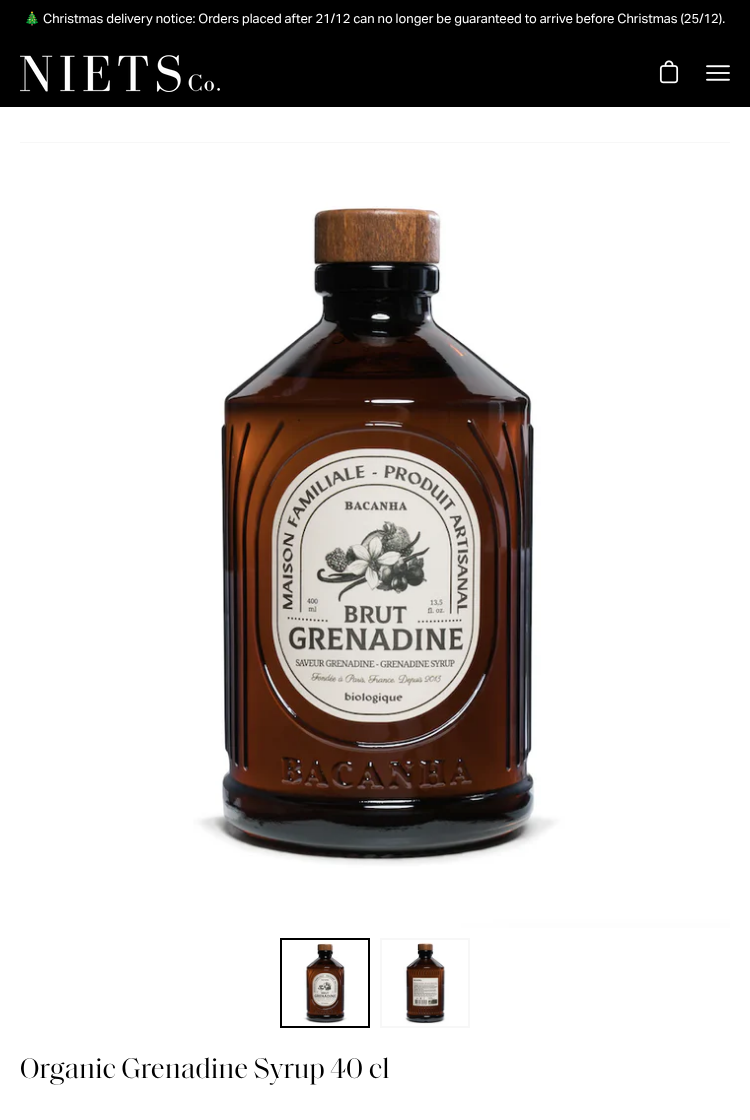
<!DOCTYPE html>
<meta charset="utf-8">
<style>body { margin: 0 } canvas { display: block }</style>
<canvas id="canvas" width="750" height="1120"></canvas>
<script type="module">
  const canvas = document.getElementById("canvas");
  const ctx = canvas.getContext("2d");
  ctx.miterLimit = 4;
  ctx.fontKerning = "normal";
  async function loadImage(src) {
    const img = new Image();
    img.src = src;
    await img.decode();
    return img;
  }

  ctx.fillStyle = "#ffffff";
  ctx.fillRect(0, 0, 750, 1120);
  ctx.fillStyle = "#000000";
  ctx.fillRect(0, 0, 750, 107);
  ctx.font = "12.95px Noto Color Emoji";
  ctx.fillStyle = "#ffffff";
  ctx.fillText("🎄", 24, 23);
  ctx.font = "12.95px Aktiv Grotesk";
  ctx.fillText("Christmas delivery notice: Orders placed after 21/12 can no longer be guaranteed to arrive before Christmas (25/12).", 43, 23);
  ctx.drawImage(await loadImage("img1.png"), 20, 55, 200, 37);
  ctx.drawImage(await loadImage("img2.png"), 659, 60, 20, 24);
  ctx.drawImage(await loadImage("img3.png"), 706, 65, 24, 16);
  ctx.fillStyle = "#f7f7f7";
  ctx.fillRect(20, 142, 710, 1);
  ctx.drawImage(await loadImage("img4.png"), 20, 143, 710, 785);
  ctx.strokeStyle = "#000000";
  ctx.lineWidth = 2;
  ctx.strokeRect(281, 939, 88, 88);
  ctx.drawImage(await loadImage("img5.png"), 282, 940, 86, 86);
  ctx.fillRect(380, 938, 90, 90);
  ctx.drawImage(await loadImage("img6.png"), 382, 940, 86, 86);
  ctx.font = "28.75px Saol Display";
  ctx.fillStyle = "#000000";
  ctx.fillText("Organic Grenadine Syrup 40 cl", 20, 1078);
</script>
